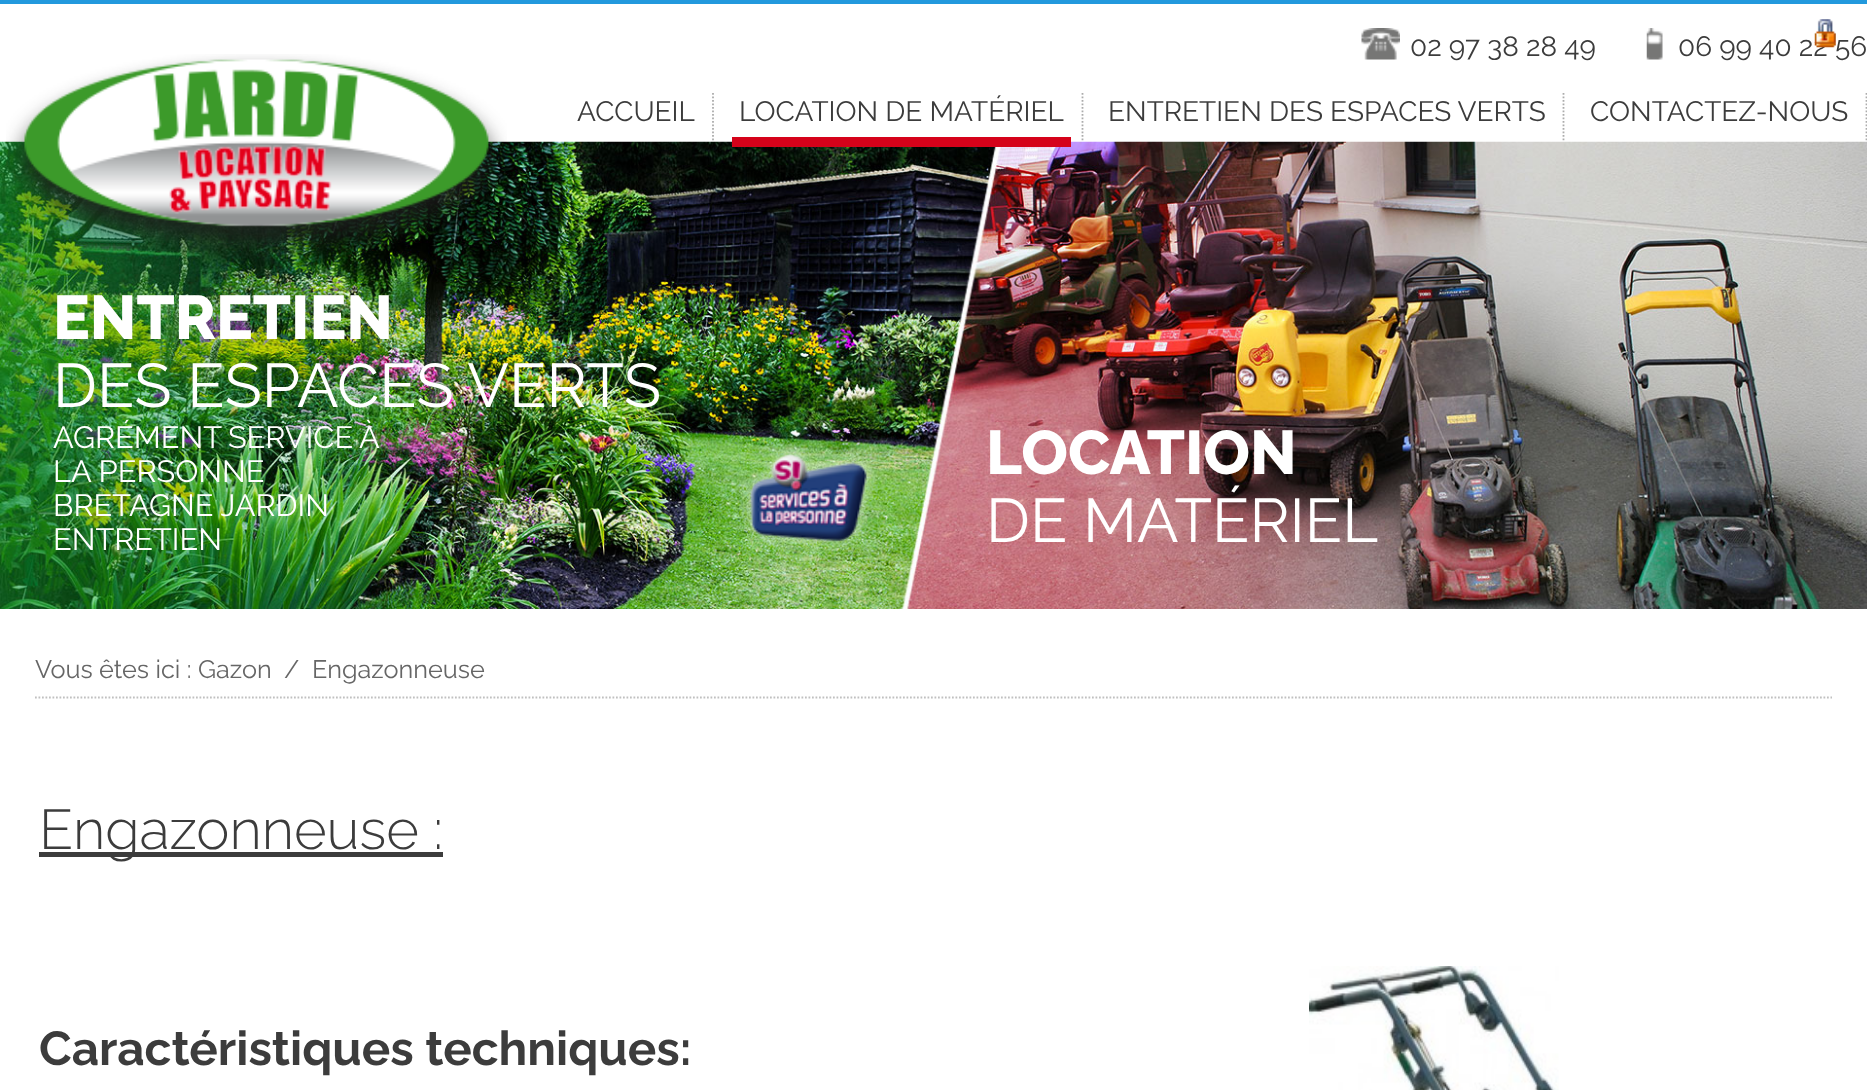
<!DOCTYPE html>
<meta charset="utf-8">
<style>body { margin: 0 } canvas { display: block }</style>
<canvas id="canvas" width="1867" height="1090"></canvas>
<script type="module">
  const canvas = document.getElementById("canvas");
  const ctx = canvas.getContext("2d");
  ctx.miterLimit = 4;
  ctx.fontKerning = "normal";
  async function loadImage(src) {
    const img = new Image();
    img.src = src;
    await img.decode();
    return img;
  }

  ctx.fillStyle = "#ffffff";
  ctx.fillRect(0, 0, 1867, 1090);
  ctx.fillStyle = "#2299dd";
  ctx.fillRect(0, 0, 1867, 4);
  ctx.font = "28px Raleway";
  ctx.fillStyle = "#3c3c3c";
  ctx.fillText("06 99 40 22 56", 1678, 56);
  ctx.drawImage(await loadImage("img1.png"), 1814, 19, 22, 29);
  ctx.drawImage(await loadImage("img2.png"), 1361, 28, 39, 32);
  ctx.fillText("02 97 38 28 49", 1410, 56);
  ctx.drawImage(await loadImage("img3.png"), 1646, 28, 17, 32);
  ctx.drawImage(await loadImage("img5.png"), 0, 141, 1867, 468);
  ctx.drawImage(await loadImage("img4.png"), 6, 54, 501, 207);
  ctx.beginPath();
  ctx.moveTo(713, 93);
  ctx.lineTo(713, 142);
  ctx.strokeStyle = "#acacac";
  ctx.lineWidth = 1.8;
  ctx.setLineDash([1.75, 1.75]);
  ctx.stroke();
  ctx.fillText("ACCUEIL", 577, 121);
  ctx.beginPath();
  ctx.moveTo(1082.5, 93);
  ctx.lineTo(1082.5, 142);
  ctx.stroke();
  ctx.fillText("LOCATION DE MATÉRIEL", 739, 121);
  ctx.fillStyle = "#d5021a";
  ctx.fillRect(732, 137, 339, 10);
  ctx.beginPath();
  ctx.moveTo(1563.5, 93);
  ctx.lineTo(1563.5, 142);
  ctx.stroke();
  ctx.fillStyle = "#3c3c3c";
  ctx.fillText("ENTRETIEN DES ESPACES VERTS", 1108, 121);
  ctx.beginPath();
  ctx.moveTo(1866.5, 93);
  ctx.lineTo(1866.5, 142);
  ctx.stroke();
  ctx.fillText("CONTACTEZ-NOUS", 1590, 121);
  ctx.font = "800 61.5px Raleway";
  ctx.fillStyle = "#ffffff";
  ctx.fillText("ENTRETIEN", 53, 339);
  ctx.font = "61.5px Raleway";
  ctx.fillText("DES ESPACES VERTS", 53, 407);
  ctx.wordSpacing = "-1px";
  ctx.font = "30.75px Raleway";
  ctx.fillText("AGRÉMENT SERVICE À", 53, 448);
  ctx.wordSpacing = "0px";
  ctx.fillText("LA PERSONNE", 53, 482);
  ctx.fillText("BRETAGNE JARDIN", 53, 516);
  ctx.fillText("ENTRETIEN", 53, 550);
  ctx.drawImage(await loadImage("img6.png"), 738, 443, 140, 110);
  ctx.font = "800 61.5px Raleway";
  ctx.fillText("LOCATION", 986, 474);
  ctx.font = "61.5px Raleway";
  ctx.fillText("DE MATÉRIEL", 986, 542);
  ctx.beginPath();
  ctx.moveTo(35, 697.5);
  ctx.lineTo(1832, 697.5);
  ctx.strokeStyle = "#c0c0c0";
  ctx.stroke();
  ctx.font = "25.25px Raleway";
  ctx.fillStyle = "#666666";
  ctx.fillText("Vous êtes ici : Gazon", 35, 678);
  ctx.fillText("/", 284, 678);
  ctx.fillText("Engazonneuse", 312, 678);
  ctx.fillStyle = "#3c3c3c";
  ctx.fillRect(39, 852, 404, 5);
  ctx.font = "300 56px Raleway";
  ctx.fillText("Engazonneuse :", 39, 849);
  ctx.font = "bold 47.6px Raleway";
  ctx.fillText("Caractéristiques techniques:", 39, 1065);
  ctx.drawImage(await loadImage("img7.png"), 1309, 966, 250, 124);
</script>
